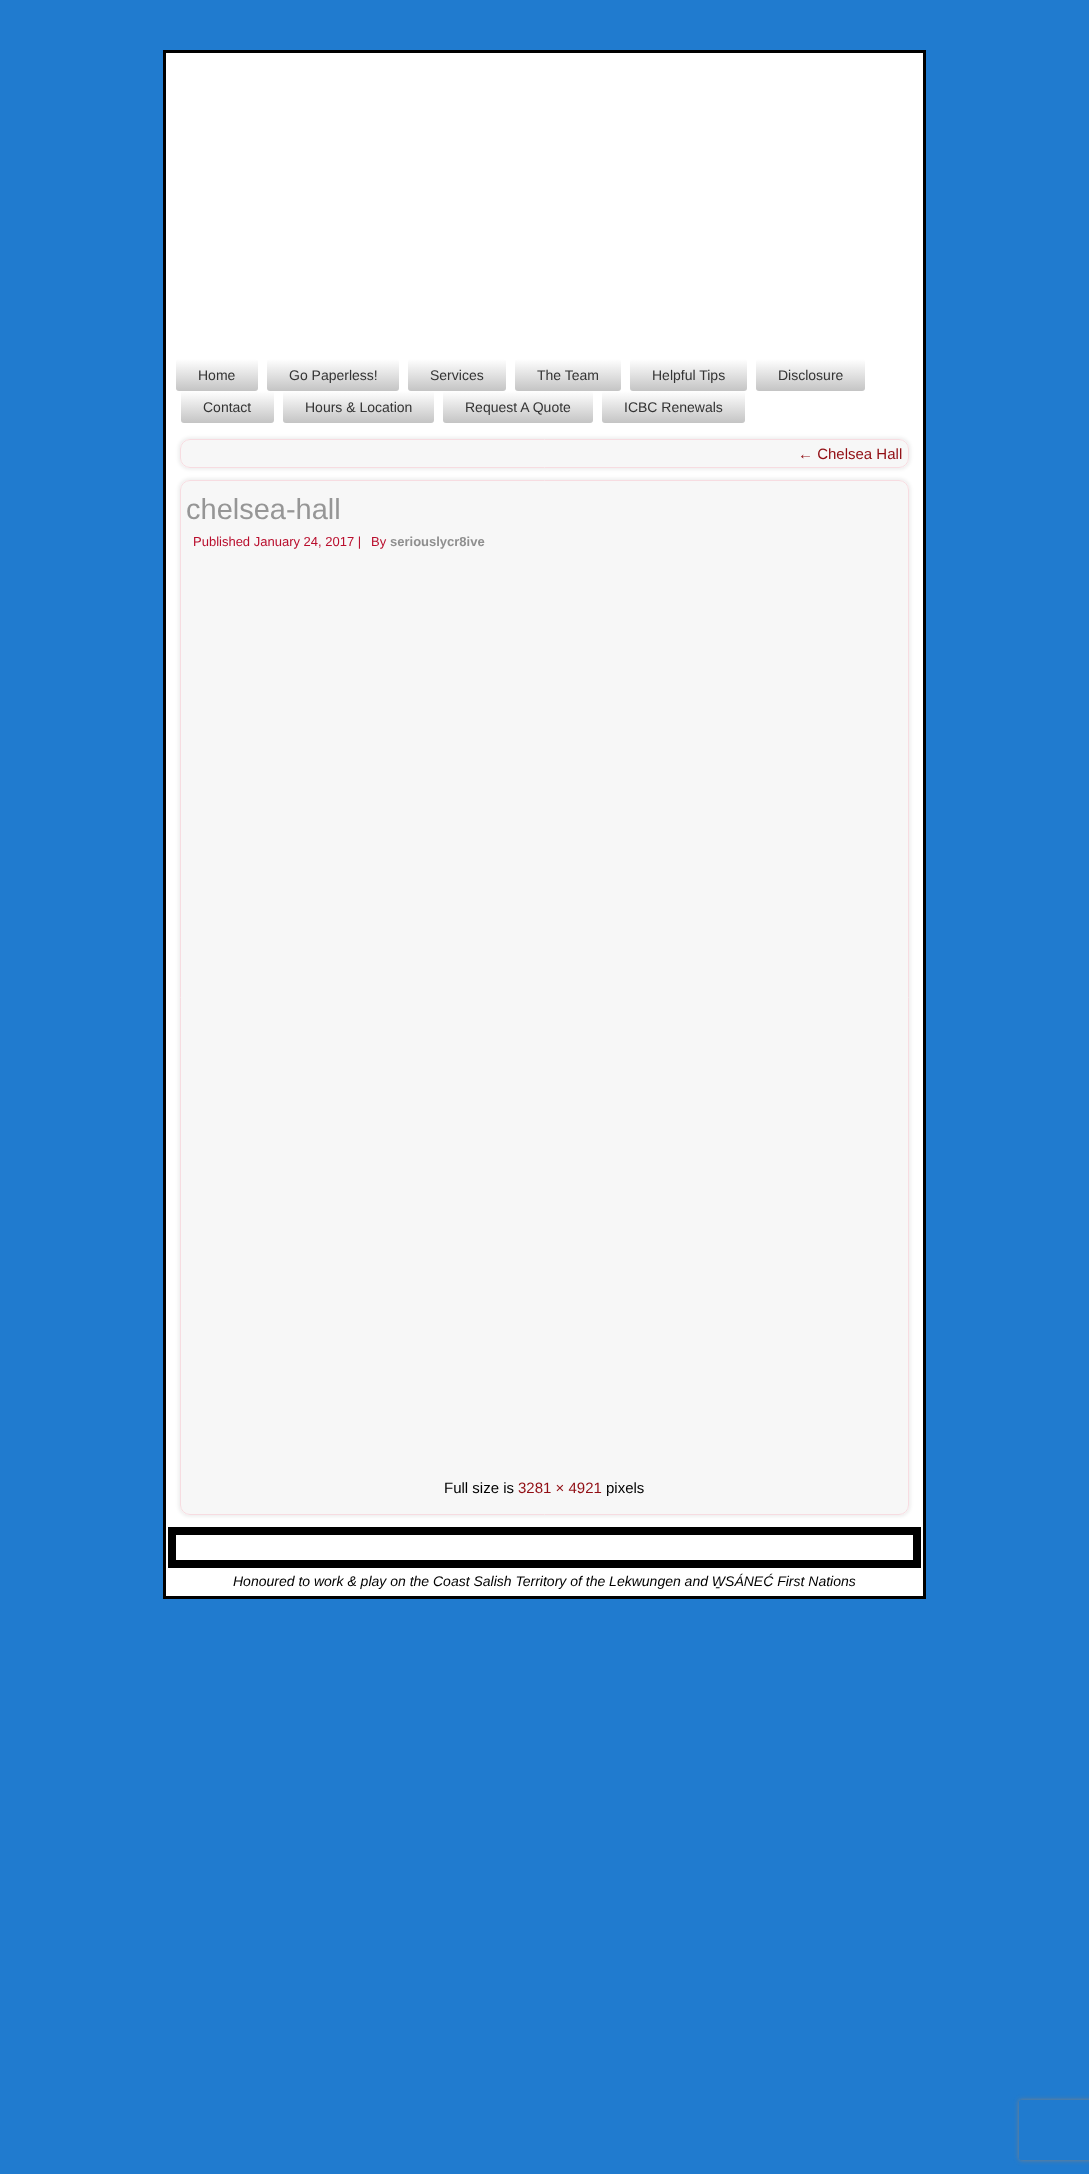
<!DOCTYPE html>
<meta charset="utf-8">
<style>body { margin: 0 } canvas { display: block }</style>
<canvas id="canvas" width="1089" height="2174"></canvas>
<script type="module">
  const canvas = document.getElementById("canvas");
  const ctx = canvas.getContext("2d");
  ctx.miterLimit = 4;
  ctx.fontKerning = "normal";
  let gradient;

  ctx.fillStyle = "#207bcf";
  ctx.fillRect(0, 0, 1089, 2174);
  ctx.fillStyle = "#ffffff";
  ctx.beginPath();
  ctx.rect(164.5, 51.5, 760, 1546);
  ctx.fill();
  ctx.strokeStyle = "#000000";
  ctx.lineWidth = 3;
  ctx.stroke();
  gradient = ctx.createLinearGradient(217, 359, 217, 391);
  gradient.addColorStop(0, "#ffffff");
  gradient.addColorStop(1, "#c4c4c4");
  ctx.fillStyle = gradient;
  ctx.beginPath();
  ctx.roundRect(176, 359, 82, 32, 3);
  ctx.fill();
  ctx.font = "14px Liberation Sans";
  ctx.fillStyle = "#333333";
  ctx.fillText("Home", 198, 380);
  gradient = ctx.createLinearGradient(333, 359, 333, 391);
  gradient.addColorStop(0, "#ffffff");
  gradient.addColorStop(1, "#c4c4c4");
  ctx.fillStyle = gradient;
  ctx.beginPath();
  ctx.roundRect(267, 359, 132, 32, 3);
  ctx.fill();
  ctx.fillStyle = "#333333";
  ctx.fillText("Go Paperless!", 289, 380);
  gradient = ctx.createLinearGradient(457, 359, 457, 391);
  gradient.addColorStop(0, "#ffffff");
  gradient.addColorStop(1, "#c4c4c4");
  ctx.fillStyle = gradient;
  ctx.beginPath();
  ctx.roundRect(408, 359, 98, 32, 3);
  ctx.fill();
  ctx.fillStyle = "#333333";
  ctx.fillText("Services", 430, 380);
  gradient = ctx.createLinearGradient(568, 359, 568, 391);
  gradient.addColorStop(0, "#ffffff");
  gradient.addColorStop(1, "#c4c4c4");
  ctx.fillStyle = gradient;
  ctx.beginPath();
  ctx.roundRect(515, 359, 106, 32, 3);
  ctx.fill();
  ctx.fillStyle = "#333333";
  ctx.fillText("The Team", 537, 380);
  gradient = ctx.createLinearGradient(689, 359, 689, 391);
  gradient.addColorStop(0, "#ffffff");
  gradient.addColorStop(1, "#c4c4c4");
  ctx.fillStyle = gradient;
  ctx.beginPath();
  ctx.roundRect(630, 359, 117, 32, 3);
  ctx.fill();
  ctx.fillStyle = "#333333";
  ctx.fillText("Helpful Tips", 652, 380);
  gradient = ctx.createLinearGradient(811, 359, 811, 391);
  gradient.addColorStop(0, "#ffffff");
  gradient.addColorStop(1, "#c4c4c4");
  ctx.fillStyle = gradient;
  ctx.beginPath();
  ctx.roundRect(756, 359, 109, 32, 3);
  ctx.fill();
  ctx.fillStyle = "#333333";
  ctx.fillText("Disclosure", 778, 380);
  gradient = ctx.createLinearGradient(228, 391, 228, 423);
  gradient.addColorStop(0, "#ffffff");
  gradient.addColorStop(1, "#c4c4c4");
  ctx.fillStyle = gradient;
  ctx.beginPath();
  ctx.roundRect(181, 391, 93, 32, 3);
  ctx.fill();
  ctx.fillStyle = "#333333";
  ctx.fillText("Contact", 203, 412);
  gradient = ctx.createLinearGradient(359, 391, 359, 423);
  gradient.addColorStop(0, "#ffffff");
  gradient.addColorStop(1, "#c4c4c4");
  ctx.fillStyle = gradient;
  ctx.beginPath();
  ctx.roundRect(283, 391, 151, 32, 3);
  ctx.fill();
  ctx.fillStyle = "#333333";
  ctx.fillText("Hours & Location", 305, 412);
  gradient = ctx.createLinearGradient(518, 391, 518, 423);
  gradient.addColorStop(0, "#ffffff");
  gradient.addColorStop(1, "#c4c4c4");
  ctx.fillStyle = gradient;
  ctx.beginPath();
  ctx.roundRect(443, 391, 150, 32, 3);
  ctx.fill();
  ctx.fillStyle = "#333333";
  ctx.fillText("Request A Quote", 465, 412);
  gradient = ctx.createLinearGradient(674, 391, 674, 423);
  gradient.addColorStop(0, "#ffffff");
  gradient.addColorStop(1, "#c4c4c4");
  ctx.fillStyle = gradient;
  ctx.beginPath();
  ctx.roundRect(602, 391, 143, 32, 3);
  ctx.fill();
  ctx.fillStyle = "#333333";
  ctx.fillText("ICBC Renewals", 624, 412);
  ctx.save();
  ctx.beginPath();
  ctx.moveTo(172, 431);
  ctx.lineTo(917, 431);
  ctx.lineTo(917, 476);
  ctx.lineTo(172, 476);
  ctx.closePath();
  ctx.moveTo(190, 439);
  ctx.lineTo(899, 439);
  ctx.bezierCurveTo(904.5, 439, 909, 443.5, 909, 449);
  ctx.lineTo(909, 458);
  ctx.bezierCurveTo(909, 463.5, 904.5, 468, 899, 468);
  ctx.lineTo(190, 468);
  ctx.bezierCurveTo(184.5, 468, 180, 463.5, 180, 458);
  ctx.lineTo(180, 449);
  ctx.bezierCurveTo(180, 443.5, 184.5, 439, 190, 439);
  ctx.closePath();
  ctx.clip("evenodd");
  ctx.fillStyle = "rgba(0, 0, 0, 0.06)";
  ctx.filter = "blur(1.5px)";
  ctx.beginPath();
  ctx.roundRect(178, 437, 733, 33, 12);
  ctx.fill();
  ctx.filter = "none";
  ctx.restore();
  ctx.fillStyle = "rgba(217, 217, 217, 0.2)";
  ctx.beginPath();
  ctx.roundRect(180.5, 439.5, 728, 28, 9.5);
  ctx.fill();
  ctx.strokeStyle = "#f7dce1";
  ctx.lineWidth = 1;
  ctx.stroke();
  ctx.font = "15px Liberation Sans";
  ctx.fillStyle = "#910d13";
  ctx.fillText("← Chelsea Hall", 798, 459);
  ctx.save();
  ctx.beginPath();
  ctx.moveTo(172, 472);
  ctx.lineTo(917, 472);
  ctx.lineTo(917, 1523);
  ctx.lineTo(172, 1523);
  ctx.closePath();
  ctx.moveTo(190, 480);
  ctx.lineTo(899, 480);
  ctx.bezierCurveTo(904.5, 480, 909, 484.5, 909, 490);
  ctx.lineTo(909, 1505);
  ctx.bezierCurveTo(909, 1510.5, 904.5, 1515, 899, 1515);
  ctx.lineTo(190, 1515);
  ctx.bezierCurveTo(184.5, 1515, 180, 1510.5, 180, 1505);
  ctx.lineTo(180, 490);
  ctx.bezierCurveTo(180, 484.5, 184.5, 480, 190, 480);
  ctx.closePath();
  ctx.clip("evenodd");
  ctx.fillStyle = "rgba(0, 0, 0, 0.06)";
  ctx.filter = "blur(1.5px)";
  ctx.beginPath();
  ctx.roundRect(178, 478, 733, 1039, 12);
  ctx.fill();
  ctx.filter = "none";
  ctx.restore();
  ctx.fillStyle = "rgba(217, 217, 217, 0.2)";
  ctx.beginPath();
  ctx.roundRect(180.5, 480.5, 728, 1034, 9.5);
  ctx.fill();
  ctx.stroke();
  ctx.font = "29px Liberation Sans";
  ctx.fillStyle = "#969696";
  ctx.fillText("chelsea-hall", 186, 519);
  ctx.font = "13px Liberation Sans";
  ctx.fillStyle = "#b90e2d";
  ctx.fillText("Published January 24, 2017 |", 193, 546);
  ctx.fillText("By", 371, 546);
  ctx.font = "bold 13px Liberation Sans";
  ctx.fillStyle = "#8f8f8f";
  ctx.fillText("seriouslycr8ive", 390, 546);
  ctx.font = "15px Liberation Sans";
  ctx.fillStyle = "#000000";
  ctx.fillText("Full size is", 444, 1493);
  ctx.fillStyle = "#910d13";
  ctx.fillText("3281 × 4921", 518, 1493);
  ctx.fillStyle = "#000000";
  ctx.fillText("pixels", 606, 1493);
  ctx.fillRect(168, 1527, 753, 41);
  ctx.fillStyle = "#ffffff";
  ctx.fillRect(176, 1535, 737, 25);
  ctx.font = "italic 14px Liberation Sans";
  ctx.fillStyle = "#000000";
  ctx.fillText("Honoured to work & play on the Coast Salish Territory of the Lekwungen and W̱SÁNEĆ First Nations", 233, 1586);
  ctx.save();
  ctx.beginPath();
  ctx.moveTo(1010, 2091);
  ctx.lineTo(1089, 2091);
  ctx.lineTo(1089, 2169);
  ctx.lineTo(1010, 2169);
  ctx.closePath();
  ctx.moveTo(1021, 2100);
  ctx.lineTo(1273, 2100);
  ctx.bezierCurveTo(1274, 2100, 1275, 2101, 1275, 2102);
  ctx.lineTo(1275, 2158);
  ctx.bezierCurveTo(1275, 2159, 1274, 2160, 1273, 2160);
  ctx.lineTo(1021, 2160);
  ctx.bezierCurveTo(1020, 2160, 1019, 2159, 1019, 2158);
  ctx.lineTo(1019, 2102);
  ctx.bezierCurveTo(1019, 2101, 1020, 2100, 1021, 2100);
  ctx.closePath();
  ctx.clip("evenodd");
  ctx.fillStyle = "#808080";
  ctx.filter = "blur(2.5px)";
  ctx.beginPath();
  ctx.roundRect(1019, 2100, 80, 60, 2);
  ctx.fill();
  ctx.filter = "none";
  ctx.restore();
</script>
